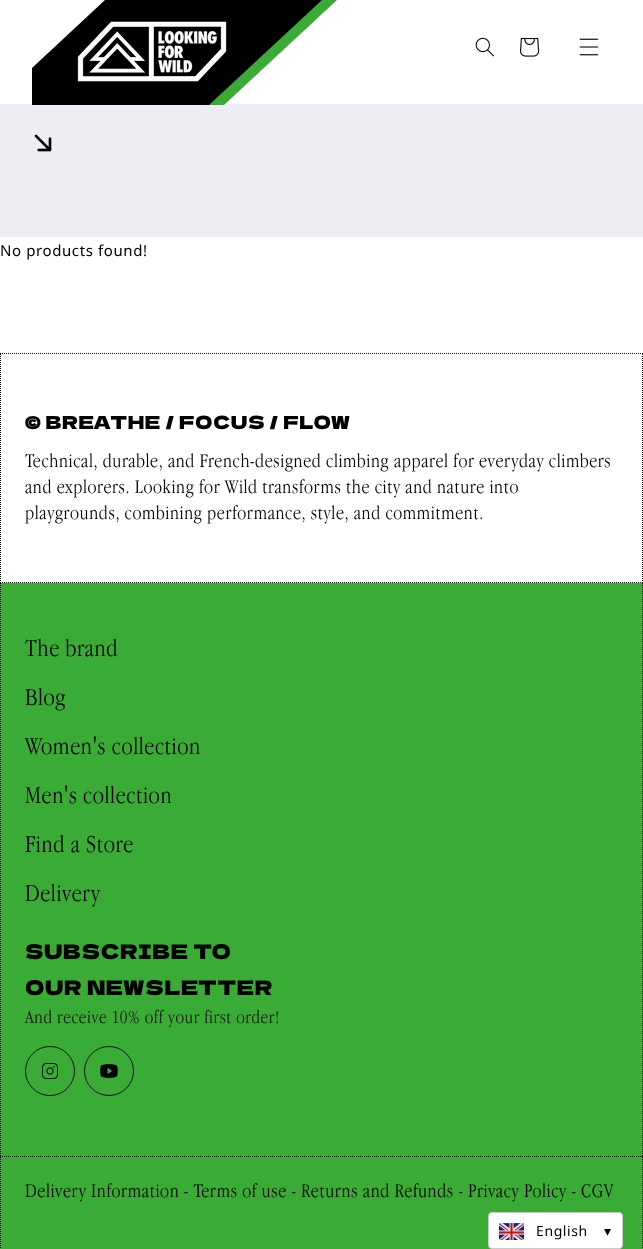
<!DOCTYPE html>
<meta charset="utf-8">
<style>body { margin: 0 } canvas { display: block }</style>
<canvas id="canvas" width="643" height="1249"></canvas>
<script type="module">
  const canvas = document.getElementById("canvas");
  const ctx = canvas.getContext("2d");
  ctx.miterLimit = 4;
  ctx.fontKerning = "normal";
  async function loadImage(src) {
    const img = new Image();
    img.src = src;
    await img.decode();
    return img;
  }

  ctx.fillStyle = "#ffffff";
  ctx.fillRect(0, 0, 643, 1249);
  ctx.fillStyle = "#ededf4";
  ctx.fillRect(0, 104, 643, 133);
  ctx.fillStyle = "#3aab35";
  ctx.beginPath();
  ctx.moveTo(120, 0);
  ctx.lineTo(47, 68);
  ctx.lineTo(47, 105);
  ctx.lineTo(224, 105);
  ctx.lineTo(337, 0);
  ctx.closePath();
  ctx.fill();
  ctx.fillStyle = "#000000";
  ctx.beginPath();
  ctx.moveTo(105, 0);
  ctx.lineTo(32, 68);
  ctx.lineTo(32, 105);
  ctx.lineTo(209, 105);
  ctx.lineTo(322, 0);
  ctx.closePath();
  ctx.fill();
  ctx.drawImage(await loadImage("img1.png"), 77, 21, 150, 61);
  ctx.drawImage(await loadImage("img2.png"), 475, 37, 19, 20);
  ctx.drawImage(await loadImage("img3.png"), 520, 38, 20, 19);
  ctx.drawImage(await loadImage("img4.png"), 579, 38, 20, 18);
  ctx.drawImage(await loadImage("img5.png"), 34, 134, 18, 18);
  ctx.letterSpacing = "0.6px";
  ctx.font = "15px Noto Sans";
  ctx.fillText("No products found!", 0, 256);
  ctx.beginPath();
  ctx.moveTo(0, 353.5);
  ctx.lineTo(643, 353.5);
  ctx.strokeStyle = "#121212";
  ctx.setLineDash([1, 1]);
  ctx.stroke();
  ctx.beginPath();
  ctx.moveTo(0, 582.5);
  ctx.lineTo(643, 582.5);
  ctx.strokeStyle = "#000000";
  ctx.stroke();
  ctx.beginPath();
  ctx.moveTo(642.5, 354);
  ctx.lineTo(642.5, 582);
  ctx.stroke();
  ctx.beginPath();
  ctx.moveTo(0.5, 354);
  ctx.lineTo(0.5, 582);
  ctx.stroke();
  ctx.font = "18px Dela Gothic One";
  ctx.fillText("© BREATHE / FOCUS / FLOW", 25, 429);
  ctx.font = "300 20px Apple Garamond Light";
  ctx.fillText("Technical, durable, and French-designed climbing apparel for everyday climbers", 25, 467);
  ctx.fillText("and explorers. Looking for Wild transforms the city and nature into", 25, 493);
  ctx.fillText("playgrounds, combining performance, style, and commitment.", 25, 519);
  ctx.fillStyle = "#3aab35";
  ctx.fillRect(0, 583, 643, 666);
  ctx.beginPath();
  ctx.moveTo(642.5, 583);
  ctx.lineTo(642.5, 1156);
  ctx.stroke();
  ctx.beginPath();
  ctx.moveTo(0.5, 583);
  ctx.lineTo(0.5, 1156);
  ctx.stroke();
  ctx.font = "300 25px Apple Garamond Light";
  ctx.fillStyle = "#000000";
  ctx.fillText("The brand", 25, 656);
  ctx.fillText("Blog", 25, 705);
  ctx.fillText("Women's collection", 25, 754);
  ctx.fillText("Men's collection", 25, 803);
  ctx.fillText("Find a Store", 25, 852);
  ctx.fillText("Delivery", 25, 901);
  ctx.font = "20px Dela Gothic One";
  ctx.fillText("SUBSCRIBE TO", 25, 959);
  ctx.fillText("OUR NEWSLETTER", 25, 995);
  ctx.font = "300 19px Apple Garamond Light";
  ctx.fillStyle = "#151515";
  ctx.fillText("And receive 10% off your first order!", 25, 1023);
  ctx.beginPath();
  ctx.arc(50, 1071, 24.5, 0, Math.PI * 2);
  ctx.strokeStyle = "#121212";
  ctx.setLineDash([]);
  ctx.stroke();
  ctx.drawImage(await loadImage("img6.png"), 42, 1063, 16, 16);
  ctx.beginPath();
  ctx.arc(109, 1071, 24.5, 0, Math.PI * 2);
  ctx.stroke();
  ctx.drawImage(await loadImage("img7.png"), 100, 1064, 18, 14);
  ctx.beginPath();
  ctx.moveTo(0, 1156.5);
  ctx.lineTo(643, 1156.5);
  ctx.strokeStyle = "#000000";
  ctx.setLineDash([1, 1]);
  ctx.stroke();
  ctx.beginPath();
  ctx.moveTo(642.5, 1157);
  ctx.lineTo(642.5, 1249);
  ctx.stroke();
  ctx.beginPath();
  ctx.moveTo(0.5, 1157);
  ctx.lineTo(0.5, 1249);
  ctx.stroke();
  ctx.font = "300 20px Apple Garamond Light";
  ctx.fillStyle = "#000000";
  ctx.fillText("Delivery Information - Terms of use - Returns and Refunds - Privacy Policy - CGV", 25, 1197);
  ctx.fillStyle = "#ffffff";
  ctx.beginPath();
  ctx.roundRect(488.5, 1212.5, 134, 36, 3.5);
  ctx.fill();
  ctx.strokeStyle = "#cccccc";
  ctx.setLineDash([]);
  ctx.stroke();
  ctx.drawImage(await loadImage("img8.png"), 499, 1223, 25, 17);
  ctx.font = "14px Noto Sans";
  ctx.fillStyle = "#000000";
  ctx.fillText("English", 536, 1236);
  ctx.font = "14px DejaVu Sans";
  ctx.fillText("▾", 604, 1236);
</script>
